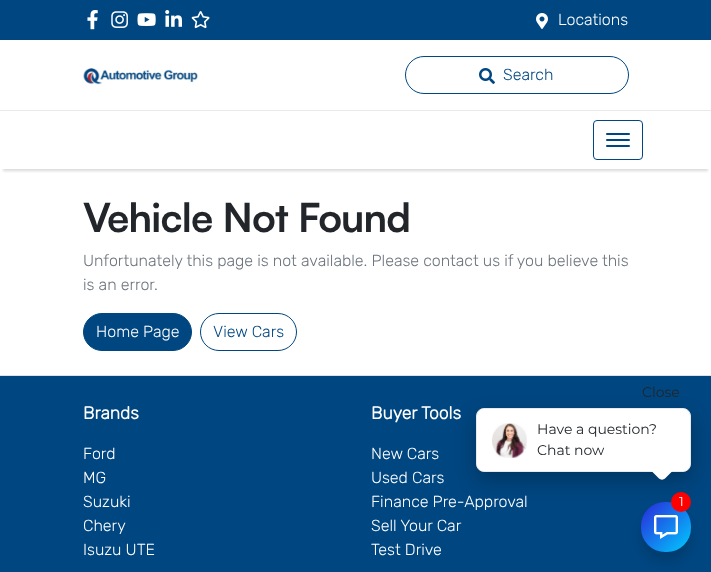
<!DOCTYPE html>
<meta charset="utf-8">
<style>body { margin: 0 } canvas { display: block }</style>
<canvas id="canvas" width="711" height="572"></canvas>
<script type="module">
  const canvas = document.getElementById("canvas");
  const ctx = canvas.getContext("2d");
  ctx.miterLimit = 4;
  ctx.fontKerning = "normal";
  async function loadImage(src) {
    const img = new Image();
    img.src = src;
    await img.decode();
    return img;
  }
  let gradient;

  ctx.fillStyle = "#ffffff";
  ctx.fillRect(0, 0, 711, 572);
  ctx.fillStyle = "#004680";
  ctx.fillRect(0, 0, 711, 40);
  ctx.drawImage(await loadImage("img1.png"), 87, 10, 11, 20);
  ctx.drawImage(await loadImage("img2.png"), 111, 11, 17, 17);
  ctx.drawImage(await loadImage("img3.png"), 137, 13, 19, 13);
  ctx.drawImage(await loadImage("img4.png"), 165, 10, 17, 17);
  ctx.drawImage(await loadImage("img5.png"), 191, 11, 19, 18);
  ctx.drawImage(await loadImage("img6.png"), 536, 13, 12, 16);
  ctx.font = "300 16px Rubik";
  ctx.fillStyle = "#ffffff";
  ctx.fillText("Locations", 558, 25);
  ctx.drawImage(await loadImage("img7.png"), 83, 68, 115, 17);
  ctx.beginPath();
  ctx.roundRect(405.5, 56.5, 223, 37, 18.5);
  ctx.strokeStyle = "#004680";
  ctx.stroke();
  ctx.drawImage(await loadImage("img8.png"), 479, 68, 16, 16);
  ctx.fillStyle = "#004680";
  ctx.fillText("Search", 503, 80);
  ctx.save();
  ctx.beginPath();
  ctx.rect(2, 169, 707, 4);
  ctx.clip();
  ctx.fillStyle = "rgba(0, 0, 0, 0.15)";
  ctx.filter = "blur(1.5px)";
  ctx.beginPath();
  ctx.rect(3, 118, 705, 53);
  ctx.fill();
  ctx.filter = "none";
  ctx.restore();
  ctx.fillStyle = "#e9e9e9";
  ctx.fillRect(0, 110, 711, 1);
  ctx.beginPath();
  ctx.roundRect(593.5, 120.5, 49, 39, 3.5);
  ctx.stroke();
  ctx.fillStyle = "#004680";
  ctx.beginPath();
  ctx.roundRect(606, 133, 24, 2, 1);
  ctx.fill();
  ctx.beginPath();
  ctx.roundRect(606, 139, 24, 2, 1);
  ctx.fill();
  ctx.beginPath();
  ctx.roundRect(606, 145, 24, 2, 1);
  ctx.fill();
  ctx.letterSpacing = "-0.75px";
  ctx.font = "bold 40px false";
  ctx.fillStyle = "#22262a";
  ctx.fillText("Vehicle Not Found", 83, 232);
  ctx.letterSpacing = "0px";
  ctx.font = "300 16px Rubik";
  ctx.fillStyle = "#6c757d";
  ctx.fillText("Unfortunately this page is not available. Please contact us if you believe this", 83, 266);
  ctx.fillText("is an error.", 83, 290);
  ctx.fillStyle = "#004680";
  ctx.beginPath();
  ctx.roundRect(83.5, 313.5, 108, 37, 18.5);
  ctx.fill();
  ctx.stroke();
  ctx.fillStyle = "#ffffff";
  ctx.fillText("Home Page", 96, 337);
  ctx.beginPath();
  ctx.roundRect(200.5, 313.5, 96, 37, 18.5);
  ctx.stroke();
  ctx.fillStyle = "#004680";
  ctx.fillText("View Cars", 213, 337);
  ctx.fillRect(0, 376, 711, 196);
  ctx.fillStyle = "#dee2e6";
  ctx.fillRect(0, 375, 711, 1);
  ctx.font = "bold 17.5px Rubik";
  ctx.fillStyle = "#ffffff";
  ctx.fillText("Brands", 83, 419);
  ctx.font = "300 16px Rubik";
  ctx.fillText("Ford", 83, 459);
  ctx.fillText("MG", 83, 483);
  ctx.fillText("Suzuki", 83, 507);
  ctx.fillText("Chery", 83, 531);
  ctx.fillText("Isuzu UTE", 83, 555);
  ctx.font = "bold 17.5px Rubik";
  ctx.fillText("Buyer Tools", 371, 419);
  ctx.font = "300 16px Rubik";
  ctx.fillText("New Cars", 371, 459);
  ctx.fillText("Used Cars", 371, 483);
  ctx.fillText("Finance Pre-Approval", 371, 507);
  ctx.fillText("Sell Your Car", 371, 531);
  ctx.fillText("Test Drive", 371, 555);
  ctx.fillStyle = "rgba(0, 0, 0, 0.12)";
  ctx.filter = "blur(5px)";
  ctx.beginPath();
  ctx.roundRect(641, 512, 50, 50, 24);
  ctx.fill();
  ctx.filter = "none";
  gradient = ctx.createLinearGradient(641, 502, 691, 552);
  gradient.addColorStop(0, "#2a27da");
  gradient.addColorStop(1, "#00ccff");
  ctx.fillStyle = gradient;
  ctx.beginPath();
  ctx.roundRect(641, 502, 50, 50, 24);
  ctx.fill();
  ctx.fillStyle = "rgba(0, 0, 0, 0.24)";
  ctx.filter = "blur(10px)";
  ctx.beginPath();
  ctx.roundRect(476, 416, 215, 64, 8);
  ctx.fill();
  ctx.filter = "none";
  ctx.fillStyle = "#ffffff";
  ctx.beginPath();
  ctx.roundRect(476.5, 408.5, 214, 63, 7.5);
  ctx.fill();
  ctx.strokeStyle = "#e8e9eb";
  ctx.stroke();
  ctx.font = "100 14px Montserrat";
  ctx.fillStyle = "#22262a";
  ctx.fillText("Close", 642, 397);
  ctx.drawImage(await loadImage("img9.png"), 492, 423, 35, 35);
  ctx.fillText("Have a question?", 537, 434);
  ctx.fillText("Chat now", 537, 455);
  ctx.fillStyle = "#ffffff";
  ctx.beginPath();
  ctx.moveTo(665, 455.5);
  ctx.lineTo(673.5, 464);
  ctx.bezierCurveTo(675, 465.5, 675, 468.5, 673.5, 470);
  ctx.lineTo(665, 478.5);
  ctx.bezierCurveTo(663.5, 480, 660.5, 480, 659, 478.5);
  ctx.lineTo(650.5, 470);
  ctx.bezierCurveTo(649, 468.5, 649, 465.5, 650.5, 464);
  ctx.lineTo(659, 455.5);
  ctx.bezierCurveTo(660.5, 454, 663.5, 454, 665, 455.5);
  ctx.closePath();
  ctx.fill();
  ctx.fillStyle = "#ff0000";
  ctx.beginPath();
  ctx.arc(681, 502, 10, 0, Math.PI * 2);
  ctx.fill();
  ctx.font = "100 13px Montserrat";
  ctx.fillStyle = "#ffffff";
  ctx.fillText("1", 679, 506);
  ctx.drawImage(await loadImage("img10.png"), 654, 515, 24, 24);
</script>
